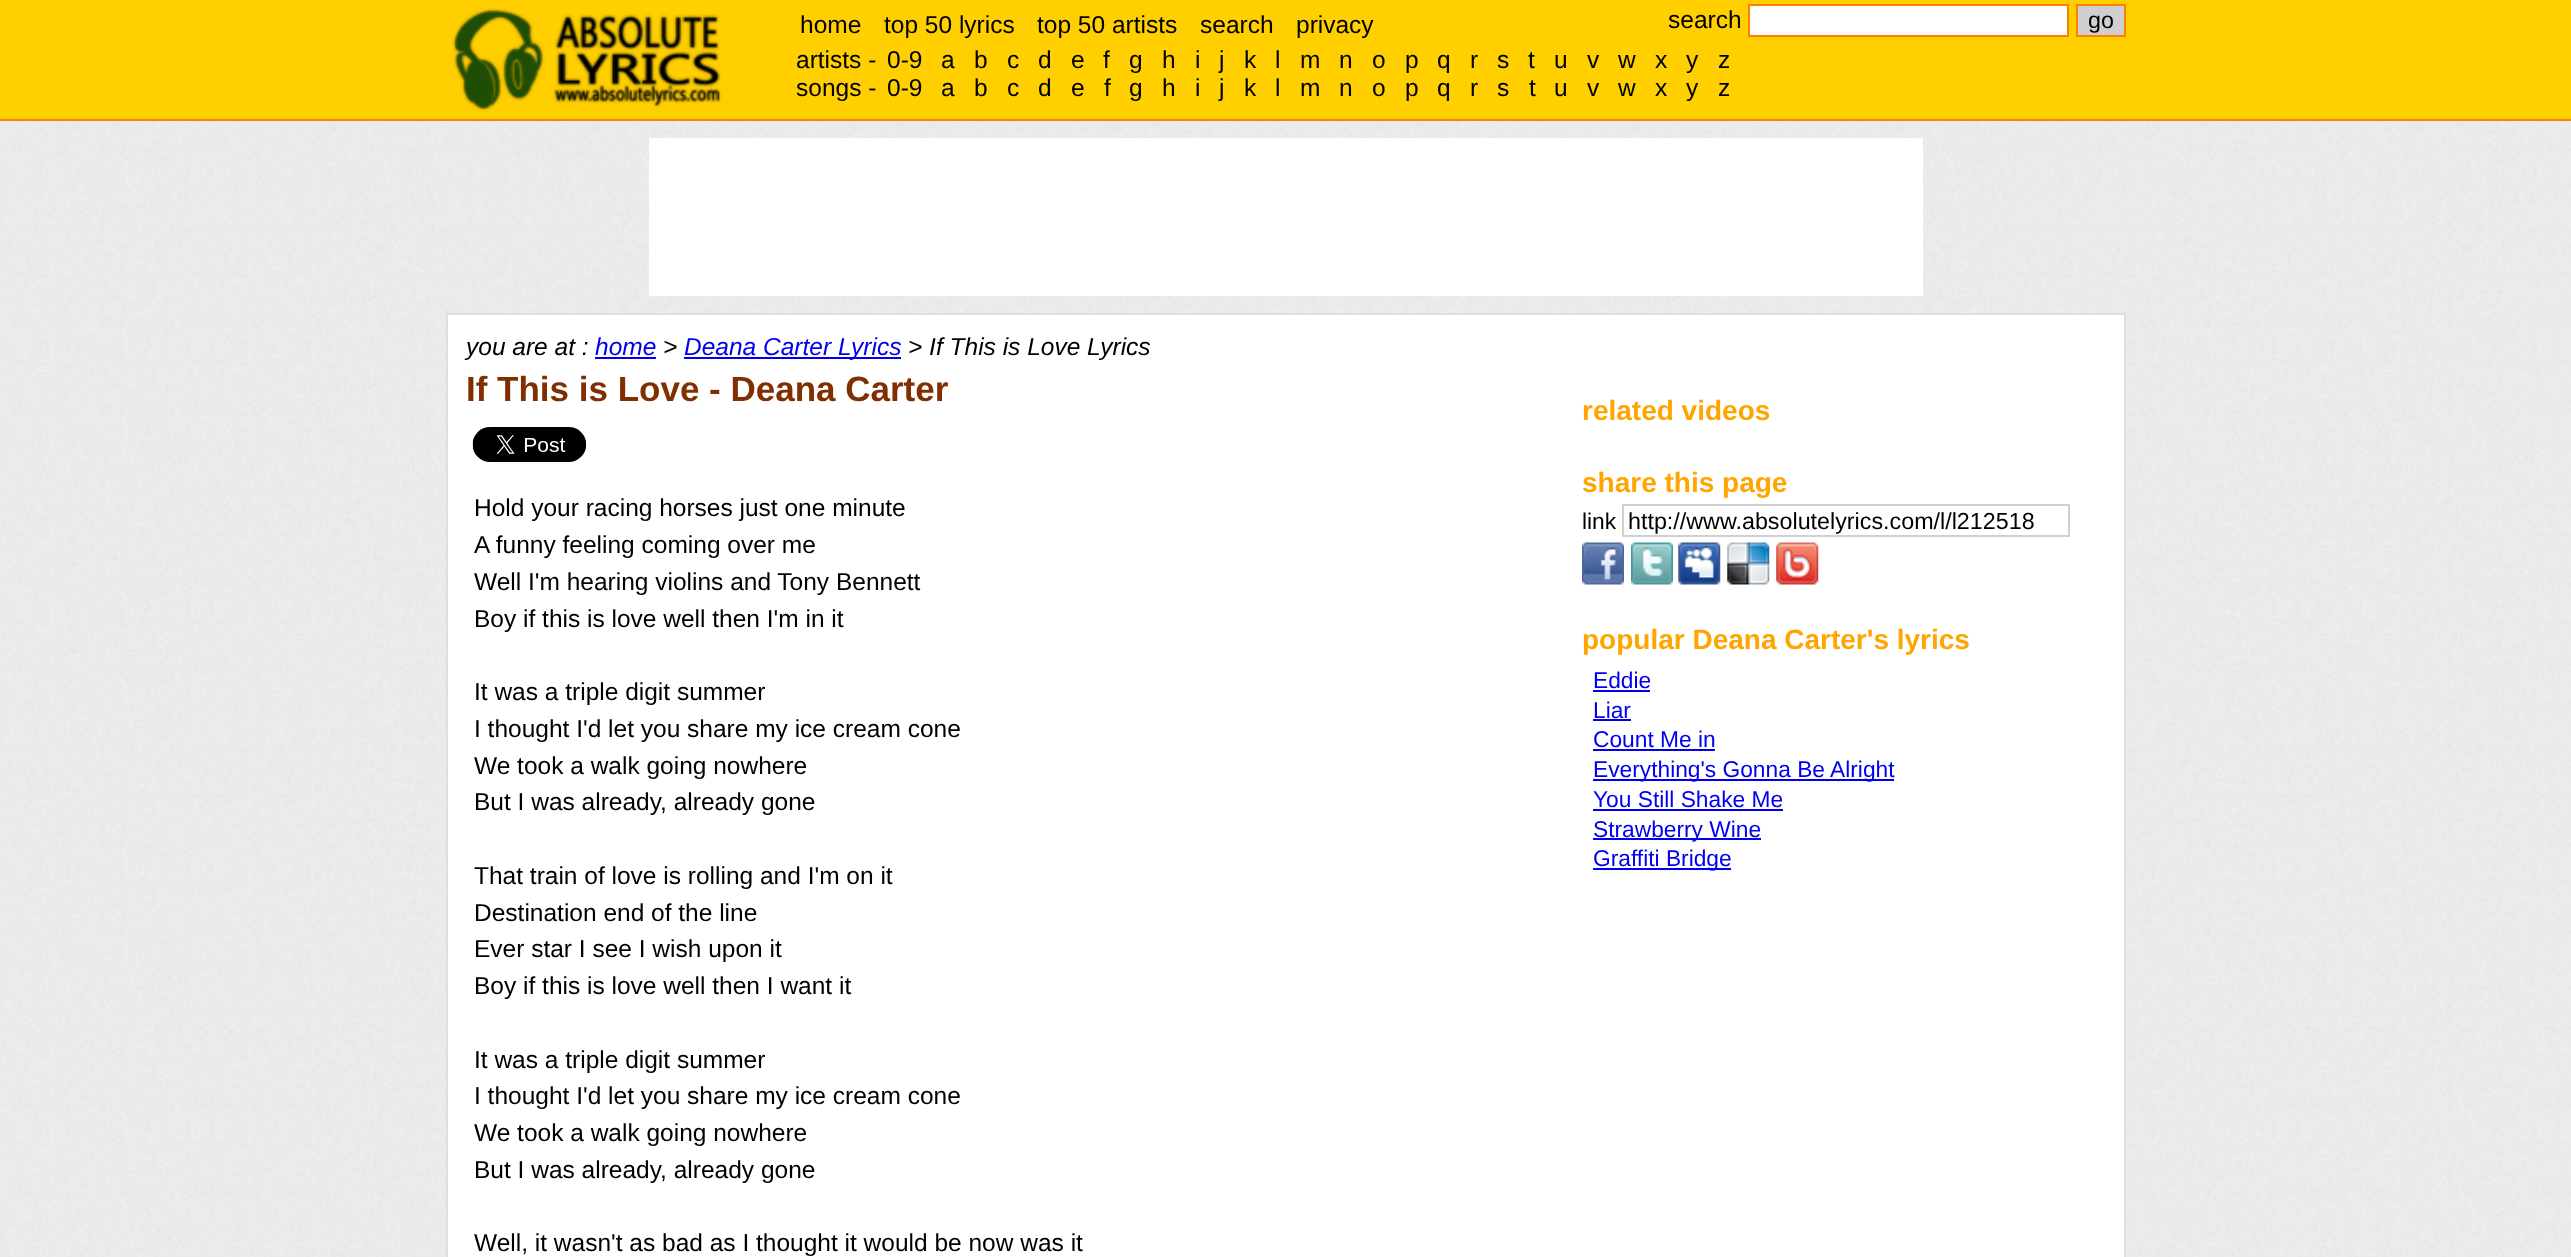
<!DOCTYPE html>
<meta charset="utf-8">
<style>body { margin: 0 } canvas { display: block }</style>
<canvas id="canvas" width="2571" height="1257"></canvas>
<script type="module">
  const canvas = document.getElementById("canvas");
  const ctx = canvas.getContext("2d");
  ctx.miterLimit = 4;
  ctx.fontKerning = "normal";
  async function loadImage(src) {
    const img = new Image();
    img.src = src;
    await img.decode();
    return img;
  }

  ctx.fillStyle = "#ffffff";
  ctx.fillRect(0, 0, 2571, 1257);
  ctx.drawImage(await loadImage("img1.png"), 0, 121, 2571, 1136);
  ctx.fillStyle = "#ffcf00";
  ctx.fillRect(0, 0, 2571, 119);
  ctx.fillStyle = "#ff7f00";
  ctx.fillRect(0, 119, 2571, 2);
  ctx.drawImage(await loadImage("img2.png"), 452, 8, 270, 103);
  ctx.font = "24.5px Liberation Sans";
  ctx.fillStyle = "#000000";
  ctx.fillText("home", 800, 33);
  ctx.fillText("top 50 lyrics", 884, 33);
  ctx.fillText("top 50 artists", 1037, 33);
  ctx.fillText("search", 1200, 33);
  ctx.fillText("privacy", 1296, 33);
  ctx.fillText("search", 1668, 28);
  ctx.fillStyle = "#ffffff";
  ctx.beginPath();
  ctx.rect(1749, 5, 319, 31);
  ctx.fill();
  ctx.strokeStyle = "#ff7f00";
  ctx.lineWidth = 2;
  ctx.stroke();
  ctx.fillStyle = "#cfcfcf";
  ctx.beginPath();
  ctx.rect(2077, 5, 48, 31);
  ctx.fill();
  ctx.stroke();
  ctx.font = "23.3px Liberation Sans";
  ctx.fillStyle = "#000000";
  ctx.fillText("go", 2088, 28);
  ctx.font = "24.5px Liberation Sans";
  ctx.fillText("artists -", 796, 68);
  ctx.fillText("0-9", 887, 68);
  ctx.fillText("a", 941, 68);
  ctx.fillText("b", 974, 68);
  ctx.fillText("c", 1007, 68);
  ctx.fillText("d", 1038, 68);
  ctx.fillText("e", 1071, 68);
  ctx.fillText("f", 1103, 68);
  ctx.fillText("g", 1129, 68);
  ctx.fillText("h", 1162, 68);
  ctx.fillText("i", 1195, 68);
  ctx.fillText("j", 1219, 68);
  ctx.fillText("k", 1244, 68);
  ctx.fillText("l", 1275, 68);
  ctx.fillText("m", 1300, 68);
  ctx.fillText("n", 1339, 68);
  ctx.fillText("o", 1372, 68);
  ctx.fillText("p", 1405, 68);
  ctx.fillText("q", 1437, 68);
  ctx.fillText("r", 1470, 68);
  ctx.fillText("s", 1497, 68);
  ctx.fillText("t", 1528, 68);
  ctx.fillText("u", 1554, 68);
  ctx.fillText("v", 1587, 68);
  ctx.fillText("w", 1618, 68);
  ctx.fillText("x", 1655, 68);
  ctx.fillText("y", 1686, 68);
  ctx.fillText("z", 1718, 68);
  ctx.fillText("songs -", 796, 96);
  ctx.fillText("0-9", 887, 96);
  ctx.fillText("a", 941, 96);
  ctx.fillText("b", 974, 96);
  ctx.fillText("c", 1007, 96);
  ctx.fillText("d", 1038, 96);
  ctx.fillText("e", 1071, 96);
  ctx.fillText("f", 1104, 96);
  ctx.fillText("g", 1129, 96);
  ctx.fillText("h", 1162, 96);
  ctx.fillText("i", 1195, 96);
  ctx.fillText("j", 1219, 96);
  ctx.fillText("k", 1244, 96);
  ctx.fillText("l", 1275, 96);
  ctx.fillText("m", 1300, 96);
  ctx.fillText("n", 1339, 96);
  ctx.fillText("o", 1372, 96);
  ctx.fillText("p", 1405, 96);
  ctx.fillText("q", 1437, 96);
  ctx.fillText("r", 1470, 96);
  ctx.fillText("s", 1497, 96);
  ctx.fillText("t", 1529, 96);
  ctx.fillText("u", 1554, 96);
  ctx.fillText("v", 1587, 96);
  ctx.fillText("w", 1618, 96);
  ctx.fillText("x", 1655, 96);
  ctx.fillText("y", 1686, 96);
  ctx.fillText("z", 1718, 96);
  ctx.fillStyle = "#ffffff";
  ctx.fillRect(649, 138, 1274, 158);
  ctx.beginPath();
  ctx.rect(447, 314, 1678, 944);
  ctx.fill();
  ctx.strokeStyle = "#dfdfdf";
  ctx.stroke();
  ctx.font = "italic 24.5px Liberation Sans";
  ctx.fillStyle = "#000000";
  ctx.fillText("you are at :", 466, 355);
  ctx.fillStyle = "#0000ee";
  ctx.fillText("home", 595, 355);
  ctx.fillRect(595, 357, 61, 2);
  ctx.fillStyle = "#000000";
  ctx.fillText(">", 663, 355);
  ctx.fillStyle = "#0000ee";
  ctx.fillRect(684, 357, 217, 2);
  ctx.fillText("Deana Carter Lyrics", 684, 355);
  ctx.fillStyle = "#000000";
  ctx.fillText("> If This is Love Lyrics", 908, 355);
  ctx.font = "bold 35px Liberation Sans";
  ctx.fillStyle = "#7f2f00";
  ctx.fillText("If This is Love - Deana Carter", 466, 401);
  ctx.drawImage(await loadImage("img3.png"), 472, 427, 115, 35);
  ctx.font = "24.5px Liberation Sans";
  ctx.fillStyle = "#000000";
  ctx.fillText("Hold your racing horses just one minute", 474, 516);
  ctx.fillText("A funny feeling coming over me", 474, 553);
  ctx.fillText("Well I'm hearing violins and Tony Bennett", 474, 590);
  ctx.fillText("Boy if this is love well then I'm in it", 474, 627);
  ctx.fillText("It was a triple digit summer", 474, 700);
  ctx.fillText("I thought I'd let you share my ice cream cone", 474, 737);
  ctx.fillText("We took a walk going nowhere", 474, 774);
  ctx.fillText("But I was already, already gone", 474, 810);
  ctx.fillText("That train of love is rolling and I'm on it", 474, 884);
  ctx.fillText("Destination end of the line", 474, 921);
  ctx.fillText("Ever star I see I wish upon it", 474, 957);
  ctx.fillText("Boy if this is love well then I want it", 474, 994);
  ctx.fillText("It was a triple digit summer", 474, 1068);
  ctx.fillText("I thought I'd let you share my ice cream cone", 474, 1104);
  ctx.fillText("We took a walk going nowhere", 474, 1141);
  ctx.fillText("But I was already, already gone", 474, 1178);
  ctx.fillText("Well, it wasn't as bad as I thought it would be now was it", 474, 1251);
  ctx.font = "bold 28px Liberation Sans";
  ctx.fillStyle = "#ffa500";
  ctx.fillText("related videos", 1582, 420);
  ctx.fillText("share this page", 1582, 492);
  ctx.font = "22.75px Liberation Sans";
  ctx.fillStyle = "#000000";
  ctx.fillText("link", 1582, 529);
  ctx.strokeStyle = "#d0d0d0";
  ctx.strokeRect(1623, 505, 446, 31);
  ctx.font = "23.3px Liberation Sans";
  ctx.fillText("http://www.absolutelyrics.com/l/l212518", 1628, 529);
  ctx.drawImage(await loadImage("img4.png"), 1582, 542, 42, 43);
  ctx.drawImage(await loadImage("img5.png"), 1631, 542, 42, 43);
  ctx.drawImage(await loadImage("img6.png"), 1678, 542, 43, 43);
  ctx.drawImage(await loadImage("img7.png"), 1727, 542, 43, 43);
  ctx.drawImage(await loadImage("img8.png"), 1776, 542, 43, 43);
  ctx.font = "bold 28px Liberation Sans";
  ctx.fillStyle = "#ffa500";
  ctx.fillText("popular Deana Carter's lyrics", 1582, 649);
  ctx.font = "22.75px Liberation Sans";
  ctx.fillStyle = "#0000ee";
  ctx.fillText("Eddie", 1593, 688);
  ctx.fillRect(1593, 690, 57, 2);
  ctx.fillText("Liar", 1593, 718);
  ctx.fillRect(1593, 719, 38, 2);
  ctx.fillText("Count Me in", 1593, 747);
  ctx.fillRect(1593, 749, 122, 2);
  ctx.fillRect(1593, 779, 301, 2);
  ctx.fillText("Everything's Gonna Be Alright", 1593, 777);
  ctx.fillText("You Still Shake Me", 1593, 807);
  ctx.fillRect(1593, 809, 190, 2);
  ctx.fillRect(1593, 838, 168, 2);
  ctx.fillText("Strawberry Wine", 1593, 837);
  ctx.fillRect(1593, 868, 138, 2);
  ctx.fillText("Graffiti Bridge", 1593, 866);
</script>
